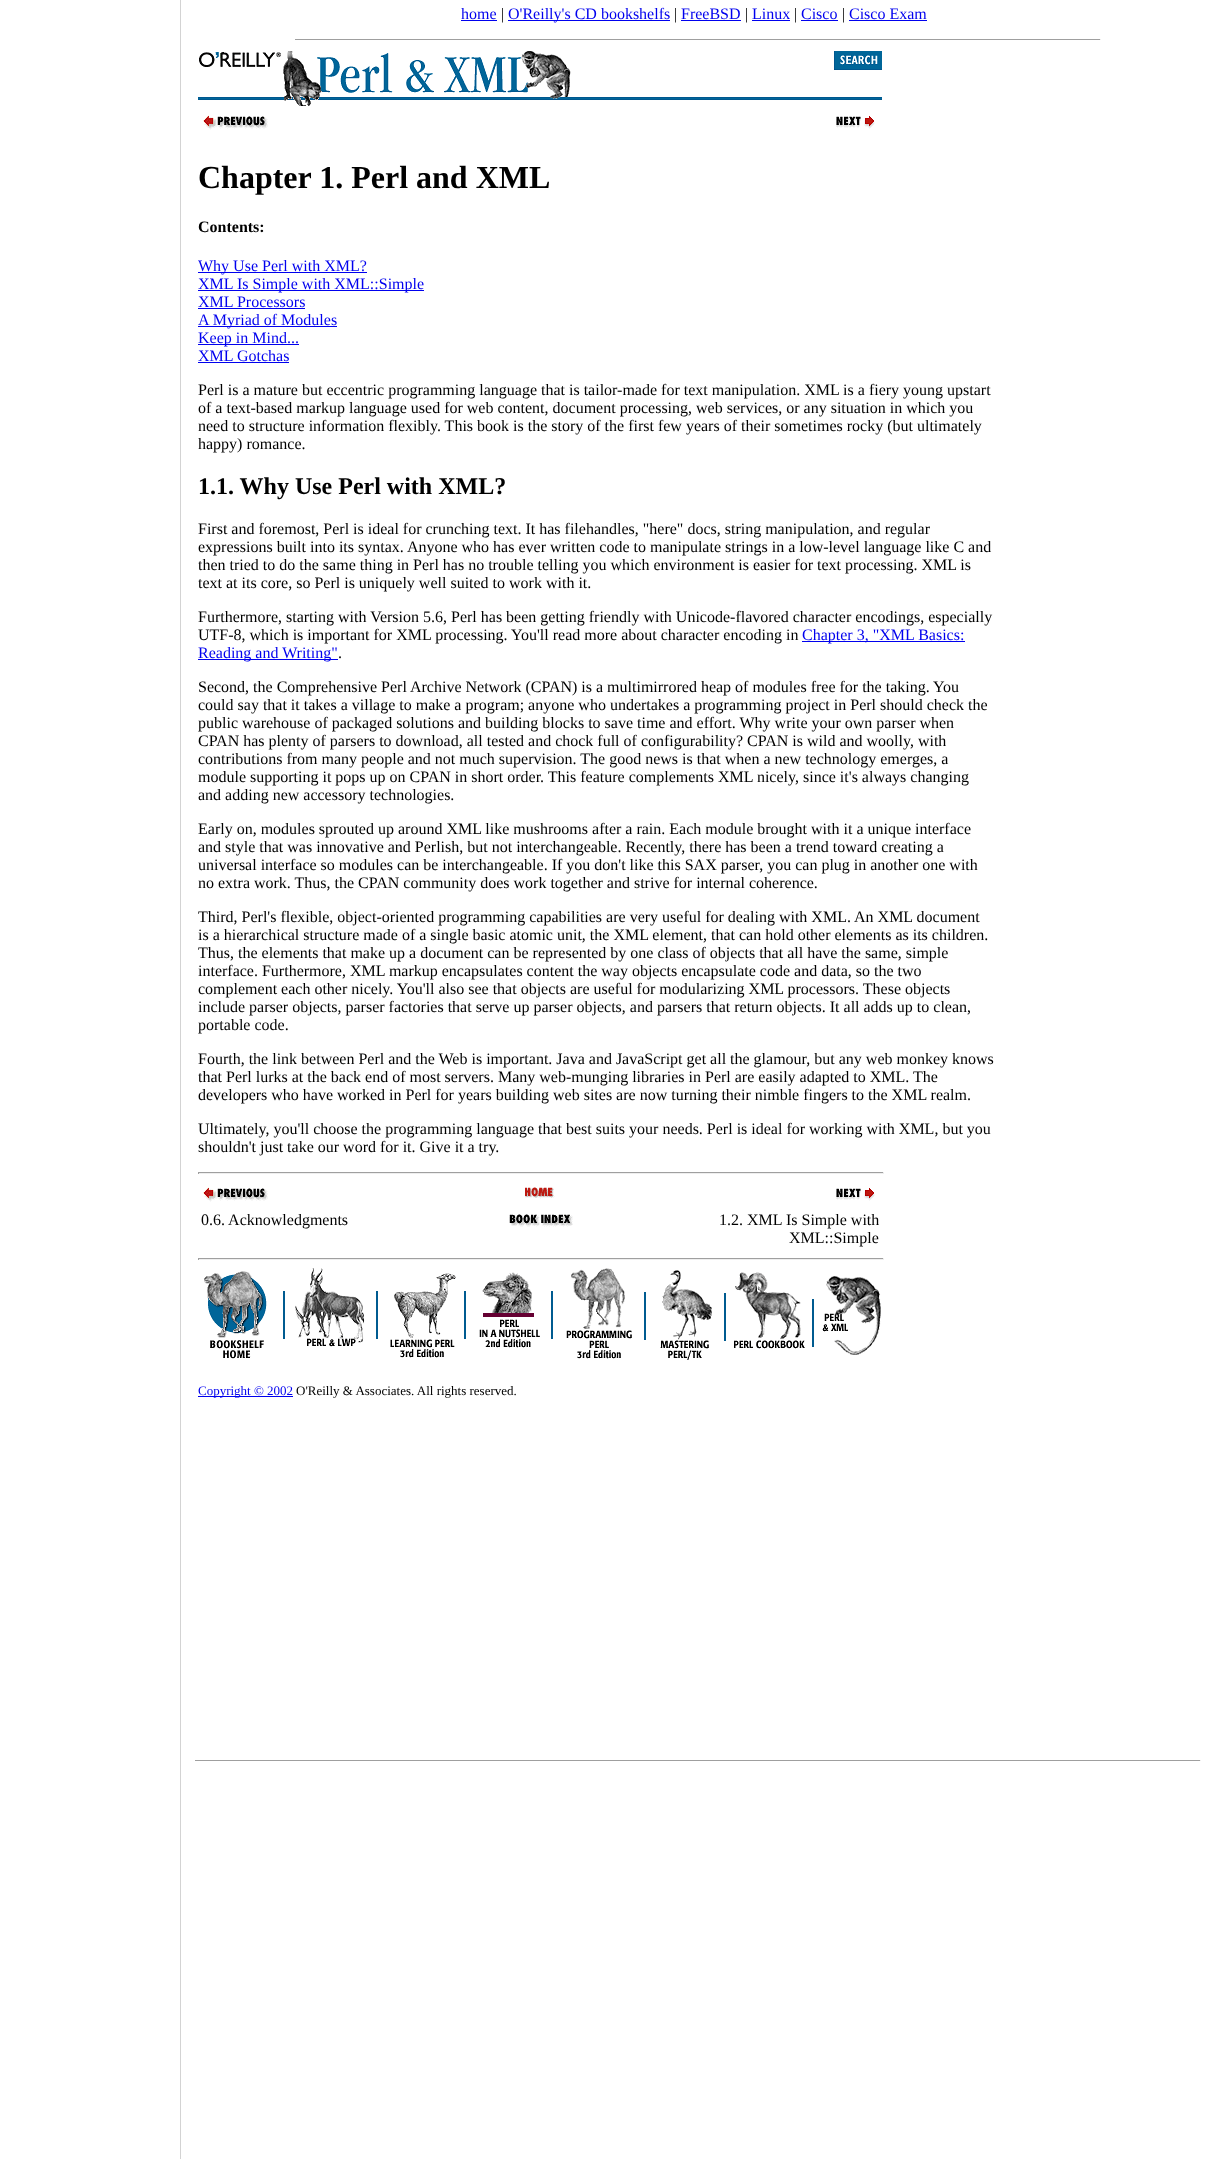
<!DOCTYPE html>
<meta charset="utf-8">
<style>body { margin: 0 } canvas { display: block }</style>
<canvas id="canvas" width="1206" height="2159"></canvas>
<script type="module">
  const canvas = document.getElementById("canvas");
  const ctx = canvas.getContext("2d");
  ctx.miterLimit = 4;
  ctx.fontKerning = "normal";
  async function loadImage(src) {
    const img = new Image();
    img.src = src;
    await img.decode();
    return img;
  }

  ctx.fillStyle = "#ffffff";
  ctx.fillRect(0, 0, 1206, 2159);
  ctx.fillStyle = "#d3d3d3";
  ctx.fillRect(180, 0, 1, 2159);
  ctx.font = "16px Liberation Serif";
  ctx.fillStyle = "#0000ee";
  ctx.fillText("home", 461, 19);
  ctx.fillRect(461, 20, 36, 1);
  ctx.fillStyle = "#000000";
  ctx.fillText("|", 501, 19);
  ctx.fillStyle = "#0000ee";
  ctx.fillRect(508, 20, 162, 1);
  ctx.fillText("O'Reilly's CD bookshelfs", 508, 19);
  ctx.fillStyle = "#000000";
  ctx.fillText("|", 674, 19);
  ctx.fillStyle = "#0000ee";
  ctx.fillText("FreeBSD", 681, 19);
  ctx.fillRect(681, 20, 60, 1);
  ctx.fillStyle = "#000000";
  ctx.fillText("|", 745, 19);
  ctx.fillStyle = "#0000ee";
  ctx.fillText("Linux", 752, 19);
  ctx.fillRect(752, 20, 38, 1);
  ctx.fillStyle = "#000000";
  ctx.fillText("|", 794, 19);
  ctx.fillStyle = "#0000ee";
  ctx.fillText("Cisco", 801, 19);
  ctx.fillRect(801, 20, 37, 1);
  ctx.fillStyle = "#000000";
  ctx.fillText("|", 842, 19);
  ctx.fillStyle = "#0000ee";
  ctx.fillText("Cisco Exam", 849, 19);
  ctx.fillRect(849, 20, 78, 1);
  ctx.fillStyle = "#9f9f9f";
  ctx.fillRect(295, 39, 806, 1);
  ctx.fillStyle = "#eeeeee";
  ctx.fillRect(1100, 39, 1, 1);
  ctx.drawImage(await loadImage("img1.png"), 198, 51, 684, 55);
  ctx.drawImage(await loadImage("img2.png"), 203, 115, 65, 15);
  ctx.drawImage(await loadImage("img3.png"), 836, 116, 39, 13);
  ctx.font = "bold 32px Liberation Serif";
  ctx.fillStyle = "#000000";
  ctx.fillText("Chapter 1. Perl and XML", 198, 188);
  ctx.font = "bold 16px Liberation Serif";
  ctx.fillText("Contents:", 198, 232);
  ctx.fillStyle = "#0000ee";
  ctx.fillRect(198, 272, 169, 1);
  ctx.font = "16px Liberation Serif";
  ctx.fillText("Why Use Perl with XML?", 198, 271);
  ctx.fillRect(198, 290, 226, 1);
  ctx.fillText("XML Is Simple with XML::Simple", 198, 289);
  ctx.fillText("XML Processors", 198, 307);
  ctx.fillRect(198, 308, 107, 1);
  ctx.fillRect(198, 326, 139, 1);
  ctx.fillText("A Myriad of Modules", 198, 325);
  ctx.fillRect(198, 344, 101, 1);
  ctx.fillText("Keep in Mind...", 198, 343);
  ctx.fillText("XML Gotchas", 198, 361);
  ctx.fillRect(198, 362, 91, 1);
  ctx.fillStyle = "#000000";
  ctx.fillText("Perl is a mature but eccentric programming language that is tailor-made for text manipulation. XML is a fiery young upstart", 198, 395);
  ctx.fillText("of a text-based markup language used for web content, document processing, web services, or any situation in which you", 198, 413);
  ctx.fillText("need to structure information flexibly. This book is the story of the first few years of their sometimes rocky (but ultimately", 198, 431);
  ctx.fillText("happy) romance.", 198, 449);
  ctx.font = "bold 24px Liberation Serif";
  ctx.fillText("1.1. Why Use Perl with XML?", 198, 494);
  ctx.font = "16px Liberation Serif";
  ctx.fillText("First and foremost, Perl is ideal for crunching text. It has filehandles, \"here\" docs, string manipulation, and regular", 198, 534);
  ctx.fillText("expressions built into its syntax. Anyone who has ever written code to manipulate strings in a low-level language like C and", 198, 552);
  ctx.fillText("then tried to do the same thing in Perl has no trouble telling you which environment is easier for text processing. XML is", 198, 570);
  ctx.fillText("text at its core, so Perl is uniquely well suited to work with it.", 198, 588);
  ctx.fillText("Furthermore, starting with Version 5.6, Perl has been getting friendly with Unicode-flavored character encodings, especially", 198, 622);
  ctx.fillText("UTF-8, which is important for XML processing. You'll read more about character encoding in", 198, 640);
  ctx.fillStyle = "#0000ee";
  ctx.fillRect(802, 641, 163, 1);
  ctx.fillText("Chapter 3, \"XML Basics:", 802, 640);
  ctx.fillRect(198, 659, 140, 1);
  ctx.fillText("Reading and Writing\"", 198, 658);
  ctx.fillStyle = "#000000";
  ctx.fillText(".", 338, 658);
  ctx.fillText("Second, the Comprehensive Perl Archive Network (CPAN) is a multimirrored heap of modules free for the taking. You", 198, 692);
  ctx.fillText("could say that it takes a village to make a program; anyone who undertakes a programming project in Perl should check the", 198, 710);
  ctx.fillText("public warehouse of packaged solutions and building blocks to save time and effort. Why write your own parser when", 198, 728);
  ctx.fillText("CPAN has plenty of parsers to download, all tested and chock full of configurability? CPAN is wild and woolly, with", 198, 746);
  ctx.fillText("contributions from many people and not much supervision. The good news is that when a new technology emerges, a", 198, 764);
  ctx.fillText("module supporting it pops up on CPAN in short order. This feature complements XML nicely, since it's always changing", 198, 782);
  ctx.fillText("and adding new accessory technologies.", 198, 800);
  ctx.fillText("Early on, modules sprouted up around XML like mushrooms after a rain. Each module brought with it a unique interface", 198, 834);
  ctx.fillText("and style that was innovative and Perlish, but not interchangeable. Recently, there has been a trend toward creating a", 198, 852);
  ctx.fillText("universal interface so modules can be interchangeable. If you don't like this SAX parser, you can plug in another one with", 198, 870);
  ctx.fillText("no extra work. Thus, the CPAN community does work together and strive for internal coherence.", 198, 888);
  ctx.fillText("Third, Perl's flexible, object-oriented programming capabilities are very useful for dealing with XML. An XML document", 198, 922);
  ctx.fillText("is a hierarchical structure made of a single basic atomic unit, the XML element, that can hold other elements as its children.", 198, 940);
  ctx.fillText("Thus, the elements that make up a document can be represented by one class of objects that all have the same, simple", 198, 958);
  ctx.fillText("interface. Furthermore, XML markup encapsulates content the way objects encapsulate code and data, so the two", 198, 976);
  ctx.fillText("complement each other nicely. You'll also see that objects are useful for modularizing XML processors. These objects", 198, 994);
  ctx.fillText("include parser objects, parser factories that serve up parser objects, and parsers that return objects. It all adds up to clean,", 198, 1012);
  ctx.fillText("portable code.", 198, 1030);
  ctx.fillText("Fourth, the link between Perl and the Web is important. Java and JavaScript get all the glamour, but any web monkey knows", 198, 1064);
  ctx.fillText("that Perl lurks at the back end of most servers. Many web-munging libraries in Perl are easily adapted to XML. The", 198, 1082);
  ctx.fillText("developers who have worked in Perl for years building web sites are now turning their nimble fingers to the XML realm.", 198, 1100);
  ctx.fillText("Ultimately, you'll choose the programming language that best suits your needs. Perl is ideal for working with XML, but you", 198, 1134);
  ctx.fillText("shouldn't just take our word for it. Give it a try.", 198, 1152);
  ctx.fillStyle = "#9f9f9f";
  ctx.fillRect(198, 1172, 686, 1);
  ctx.fillStyle = "#eeeeee";
  ctx.fillRect(883, 1172, 1, 2);
  ctx.fillRect(198, 1173, 686, 1);
  ctx.fillStyle = "#9f9f9f";
  ctx.fillRect(198, 1172, 1, 2);
  ctx.drawImage(await loadImage("img2.png"), 203, 1187, 65, 15);
  ctx.drawImage(await loadImage("img4.png"), 525, 1187, 30, 12);
  ctx.drawImage(await loadImage("img3.png"), 836, 1188, 39, 13);
  ctx.fillStyle = "#000000";
  ctx.fillText("0.6. Acknowledgments", 201, 1225);
  ctx.drawImage(await loadImage("img5.png"), 509, 1214, 64, 13);
  ctx.fillText("1.2. XML Is Simple with", 719, 1225);
  ctx.fillText("XML::Simple", 789, 1243);
  ctx.fillStyle = "#9f9f9f";
  ctx.fillRect(198, 1258, 686, 1);
  ctx.fillStyle = "#eeeeee";
  ctx.fillRect(883, 1258, 1, 2);
  ctx.fillRect(198, 1259, 686, 1);
  ctx.fillStyle = "#9f9f9f";
  ctx.fillRect(198, 1258, 1, 2);
  ctx.drawImage(await loadImage("img6.png"), 204, 1268, 677, 92);
  ctx.fillStyle = "#0000ee";
  ctx.fillRect(198, 1396, 95, 1);
  ctx.font = "13px Liberation Serif";
  ctx.fillText("Copyright © 2002", 198, 1395);
  ctx.fillStyle = "#000000";
  ctx.fillText("O'Reilly & Associates. All rights reserved.", 296, 1395);
  ctx.fillStyle = "#9f9f9f";
  ctx.fillRect(195, 1760, 1006, 1);
  ctx.fillStyle = "#eeeeee";
  ctx.fillRect(1200, 1760, 1, 1);
</script>
